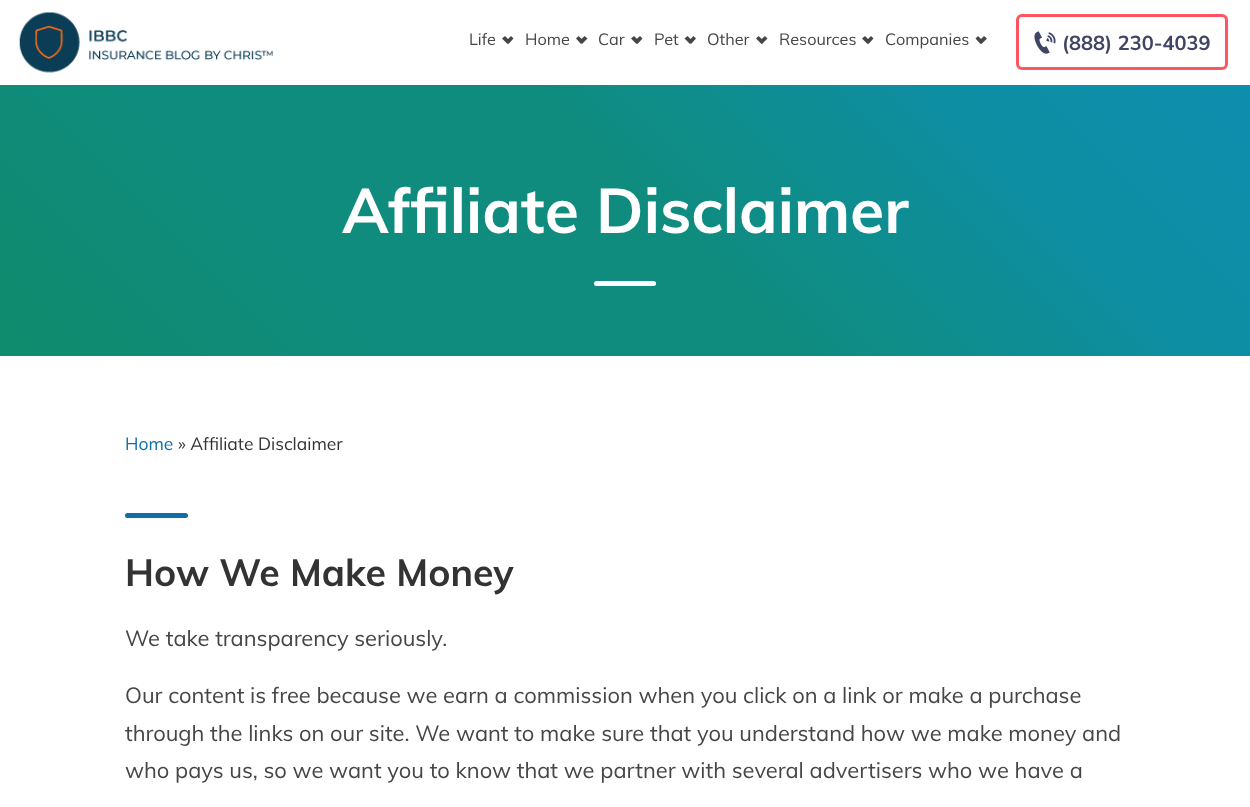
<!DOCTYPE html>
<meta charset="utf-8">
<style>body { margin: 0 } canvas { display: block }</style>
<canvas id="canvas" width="1250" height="807"></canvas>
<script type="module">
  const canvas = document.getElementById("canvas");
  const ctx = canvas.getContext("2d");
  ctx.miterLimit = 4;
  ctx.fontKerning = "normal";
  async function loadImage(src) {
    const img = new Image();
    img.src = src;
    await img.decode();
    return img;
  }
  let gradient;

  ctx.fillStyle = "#ffffff";
  ctx.fillRect(0, 0, 1250, 807);
  ctx.drawImage(await loadImage("img1.png"), 19, 12, 255, 61);
  ctx.font = "16.25px Muli";
  ctx.fillStyle = "#454647";
  ctx.fillText("Life", 469, 45);
  ctx.beginPath();
  ctx.moveTo(511, 36);
  ctx.lineTo(513.5, 38.5);
  ctx.lineTo(508.5, 44);
  ctx.lineTo(506, 41);
  ctx.closePath();
  ctx.fill();
  ctx.beginPath();
  ctx.moveTo(505, 36);
  ctx.lineTo(510, 41);
  ctx.lineTo(507.5, 44);
  ctx.lineTo(502, 38.5);
  ctx.closePath();
  ctx.fill();
  ctx.fillText("Home", 525, 45);
  ctx.beginPath();
  ctx.moveTo(584.5, 36);
  ctx.lineTo(587.5, 38.5);
  ctx.lineTo(582, 44);
  ctx.lineTo(579.5, 41);
  ctx.closePath();
  ctx.fill();
  ctx.beginPath();
  ctx.moveTo(578.5, 36);
  ctx.lineTo(584, 41);
  ctx.lineTo(581, 44);
  ctx.lineTo(576, 38.5);
  ctx.closePath();
  ctx.fill();
  ctx.fillText("Car", 598, 45);
  ctx.beginPath();
  ctx.moveTo(640, 36);
  ctx.lineTo(642.5, 38.5);
  ctx.lineTo(637.5, 44);
  ctx.lineTo(634.5, 41);
  ctx.closePath();
  ctx.fill();
  ctx.beginPath();
  ctx.moveTo(634, 36);
  ctx.lineTo(639, 41);
  ctx.lineTo(636.5, 44);
  ctx.lineTo(631, 38.5);
  ctx.closePath();
  ctx.fill();
  ctx.fillText("Pet", 654, 45);
  ctx.beginPath();
  ctx.moveTo(693.5, 36);
  ctx.lineTo(696, 38.5);
  ctx.lineTo(691, 44);
  ctx.lineTo(688.5, 41);
  ctx.closePath();
  ctx.fill();
  ctx.beginPath();
  ctx.moveTo(687.5, 36);
  ctx.lineTo(692.5, 41);
  ctx.lineTo(690, 44);
  ctx.lineTo(684.5, 38.5);
  ctx.closePath();
  ctx.fill();
  ctx.fillText("Other", 707, 45);
  ctx.beginPath();
  ctx.moveTo(765, 36);
  ctx.lineTo(767.5, 38.5);
  ctx.lineTo(762, 44);
  ctx.lineTo(759.5, 41);
  ctx.closePath();
  ctx.fill();
  ctx.beginPath();
  ctx.moveTo(758.5, 36);
  ctx.lineTo(764, 41);
  ctx.lineTo(761.5, 44);
  ctx.lineTo(756, 38.5);
  ctx.closePath();
  ctx.fill();
  ctx.fillText("Resources", 779, 45);
  ctx.beginPath();
  ctx.moveTo(871, 36);
  ctx.lineTo(873.5, 38.5);
  ctx.lineTo(868.5, 44);
  ctx.lineTo(866, 41);
  ctx.closePath();
  ctx.fill();
  ctx.beginPath();
  ctx.moveTo(865, 36);
  ctx.lineTo(870, 41);
  ctx.lineTo(867.5, 44);
  ctx.lineTo(862, 38.5);
  ctx.closePath();
  ctx.fill();
  ctx.fillText("Companies", 885, 45);
  ctx.beginPath();
  ctx.moveTo(984, 36);
  ctx.lineTo(987, 38.5);
  ctx.lineTo(981.5, 44);
  ctx.lineTo(979, 41);
  ctx.closePath();
  ctx.fill();
  ctx.beginPath();
  ctx.moveTo(978, 36);
  ctx.lineTo(983, 41);
  ctx.lineTo(980.5, 44);
  ctx.lineTo(975.5, 38.5);
  ctx.closePath();
  ctx.fill();
  ctx.beginPath();
  ctx.roundRect(1017.5, 15.5, 209, 53, 4.5);
  ctx.strokeStyle = "#ff5461";
  ctx.lineWidth = 3;
  ctx.stroke();
  ctx.drawImage(await loadImage("img2.png"), 1034, 31, 22, 23);
  ctx.font = "bold 20px Muli";
  ctx.fillStyle = "#3f4563";
  ctx.fillText("(888) 230-4039", 1062, 50);
  gradient = ctx.createLinearGradient(223, 580, 1027, -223);
  gradient.addColorStop(0, "#0f8b6d");
  gradient.addColorStop(0.25, "#0f8c7e");
  gradient.addColorStop(0.5, "#0f8c7e");
  gradient.addColorStop(0.75, "#0e8ea3");
  gradient.addColorStop(1, "#0e8eb1");
  ctx.fillStyle = gradient;
  ctx.fillRect(0, 85, 1250, 271);
  ctx.font = "bold 62.5px Muli";
  ctx.fillStyle = "#ffffff";
  ctx.fillText("Affiliate Disclaimer", 342, 233);
  ctx.beginPath();
  ctx.roundRect(594, 281, 62, 5, 2.5);
  ctx.fill();
  ctx.font = "17.5px Muli";
  ctx.fillStyle = "#0e6ea6";
  ctx.fillText("Home", 125, 450);
  ctx.fillStyle = "#333333";
  ctx.fillText("» Affiliate Disclaimer", 178, 450);
  ctx.fillStyle = "#0e6ea6";
  ctx.beginPath();
  ctx.roundRect(125, 513, 63, 5, 2.5);
  ctx.fill();
  ctx.font = "bold 37.5px Muli";
  ctx.fillStyle = "#333333";
  ctx.fillText("How We Make Money", 125, 586);
  ctx.font = "21.9px Muli";
  ctx.fillStyle = "#454647";
  ctx.fillText("We take transparency seriously.", 125, 646);
  ctx.fillText("Our content is free because we earn a commission when you click on a link or make a purchase", 125, 703);
  ctx.fillText("through the links on our site. We want to make sure that you understand how we make money and", 125, 741);
  ctx.fillText("who pays us, so we want you to know that we partner with several advertisers who we have a", 125, 778);
</script>
